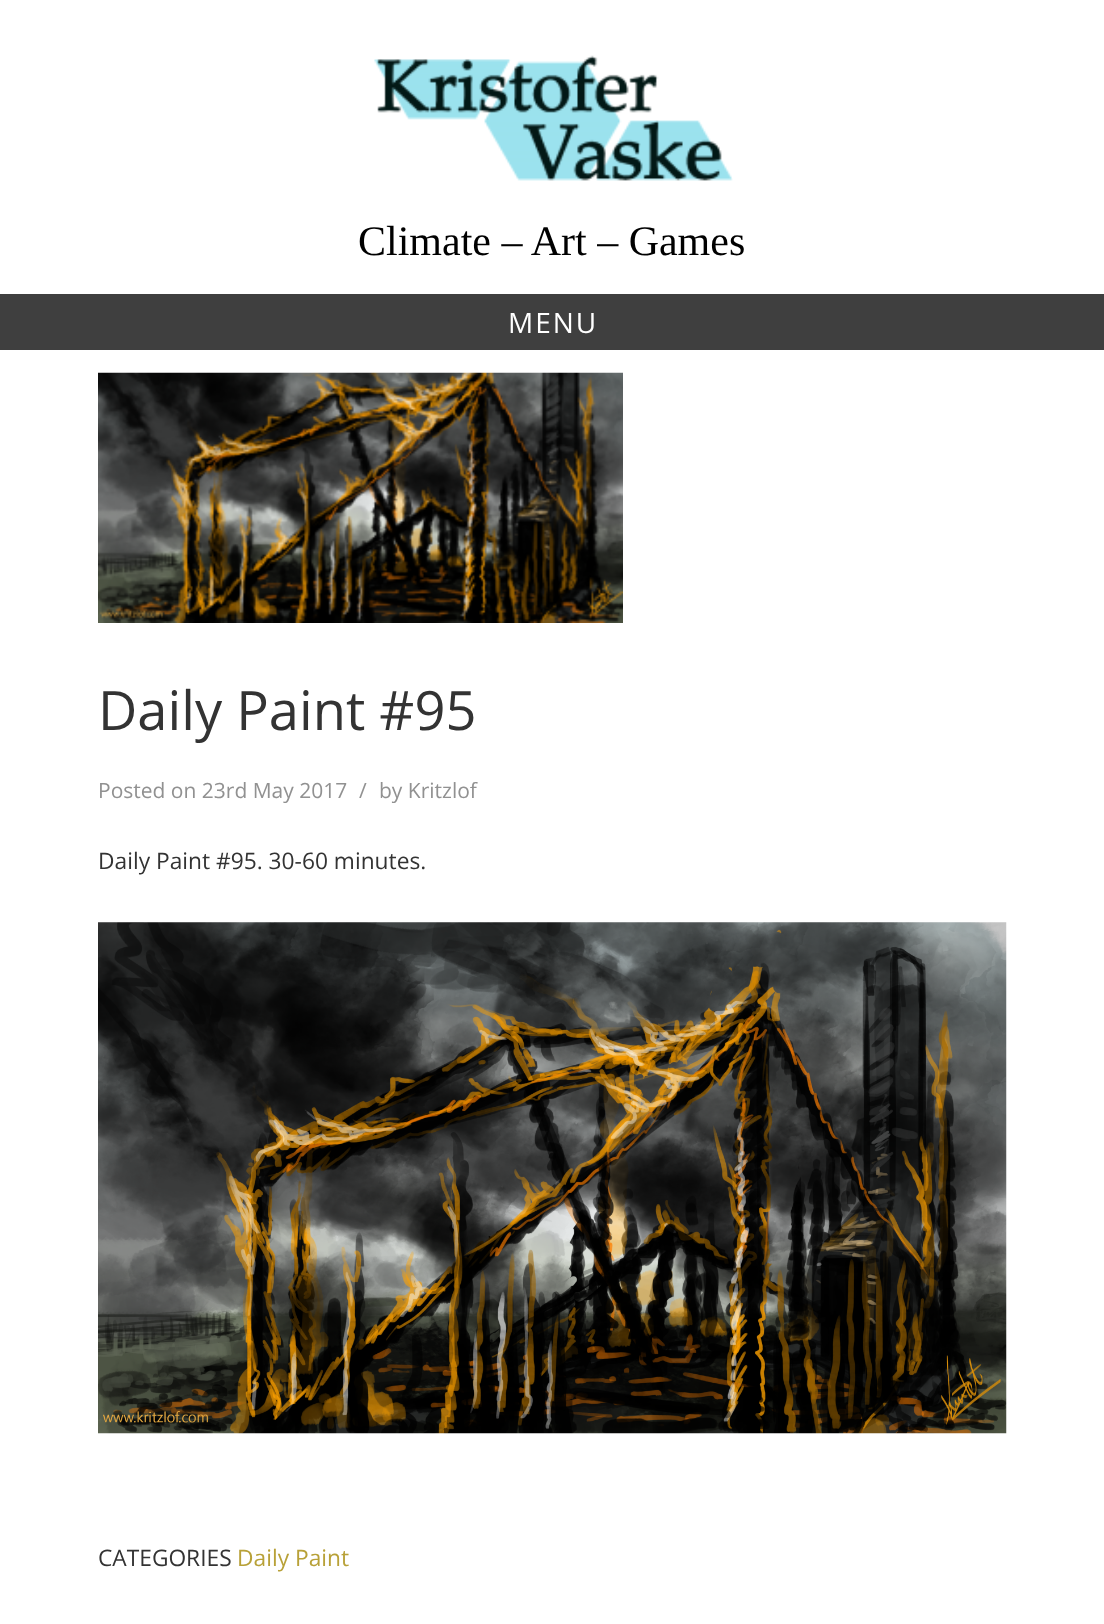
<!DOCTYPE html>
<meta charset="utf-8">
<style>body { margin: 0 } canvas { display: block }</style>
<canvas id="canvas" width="1104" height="1624"></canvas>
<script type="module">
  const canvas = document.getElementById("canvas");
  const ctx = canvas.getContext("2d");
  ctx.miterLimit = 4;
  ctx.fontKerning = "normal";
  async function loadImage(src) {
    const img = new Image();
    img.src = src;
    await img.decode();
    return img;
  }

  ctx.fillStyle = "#ffffff";
  ctx.fillRect(0, 0, 1104, 1624);
  ctx.drawImage(await loadImage("img1.png"), 374, 55, 359, 126);
  ctx.font = "42px Liberation Serif";
  ctx.fillStyle = "#000000";
  ctx.fillText("Climate – Art – Games", 358, 255);
  ctx.fillStyle = "#3f3f3f";
  ctx.fillRect(0, 294, 1104, 56);
  ctx.letterSpacing = "2px";
  ctx.font = "28px Open Sans";
  ctx.fillStyle = "#ffffff";
  ctx.fillText("MENU", 508, 333);
  ctx.drawImage(await loadImage("img2.png"), 98, 372, 525, 251);
  ctx.letterSpacing = "0px";
  ctx.font = "54.25px Open Sans";
  ctx.fillStyle = "#333333";
  ctx.fillText("Daily Paint #95", 98, 730);
  ctx.font = "21px Open Sans";
  ctx.fillStyle = "#919191";
  ctx.fillText("Posted on 23rd May 2017", 98, 798);
  ctx.fillText("/", 359, 798);
  ctx.fillText("by Kritzlof", 379, 798);
  ctx.font = "22.75px Open Sans";
  ctx.fillStyle = "#333333";
  ctx.fillText("Daily Paint #95. 30-60 minutes.", 98, 869);
  ctx.drawImage(await loadImage("img3.png"), 98, 922, 909, 512);
  ctx.fillText("CATEGORIES", 98, 1566);
  ctx.fillStyle = "#b8a138";
  ctx.fillText("Daily Paint", 237, 1566);
</script>
